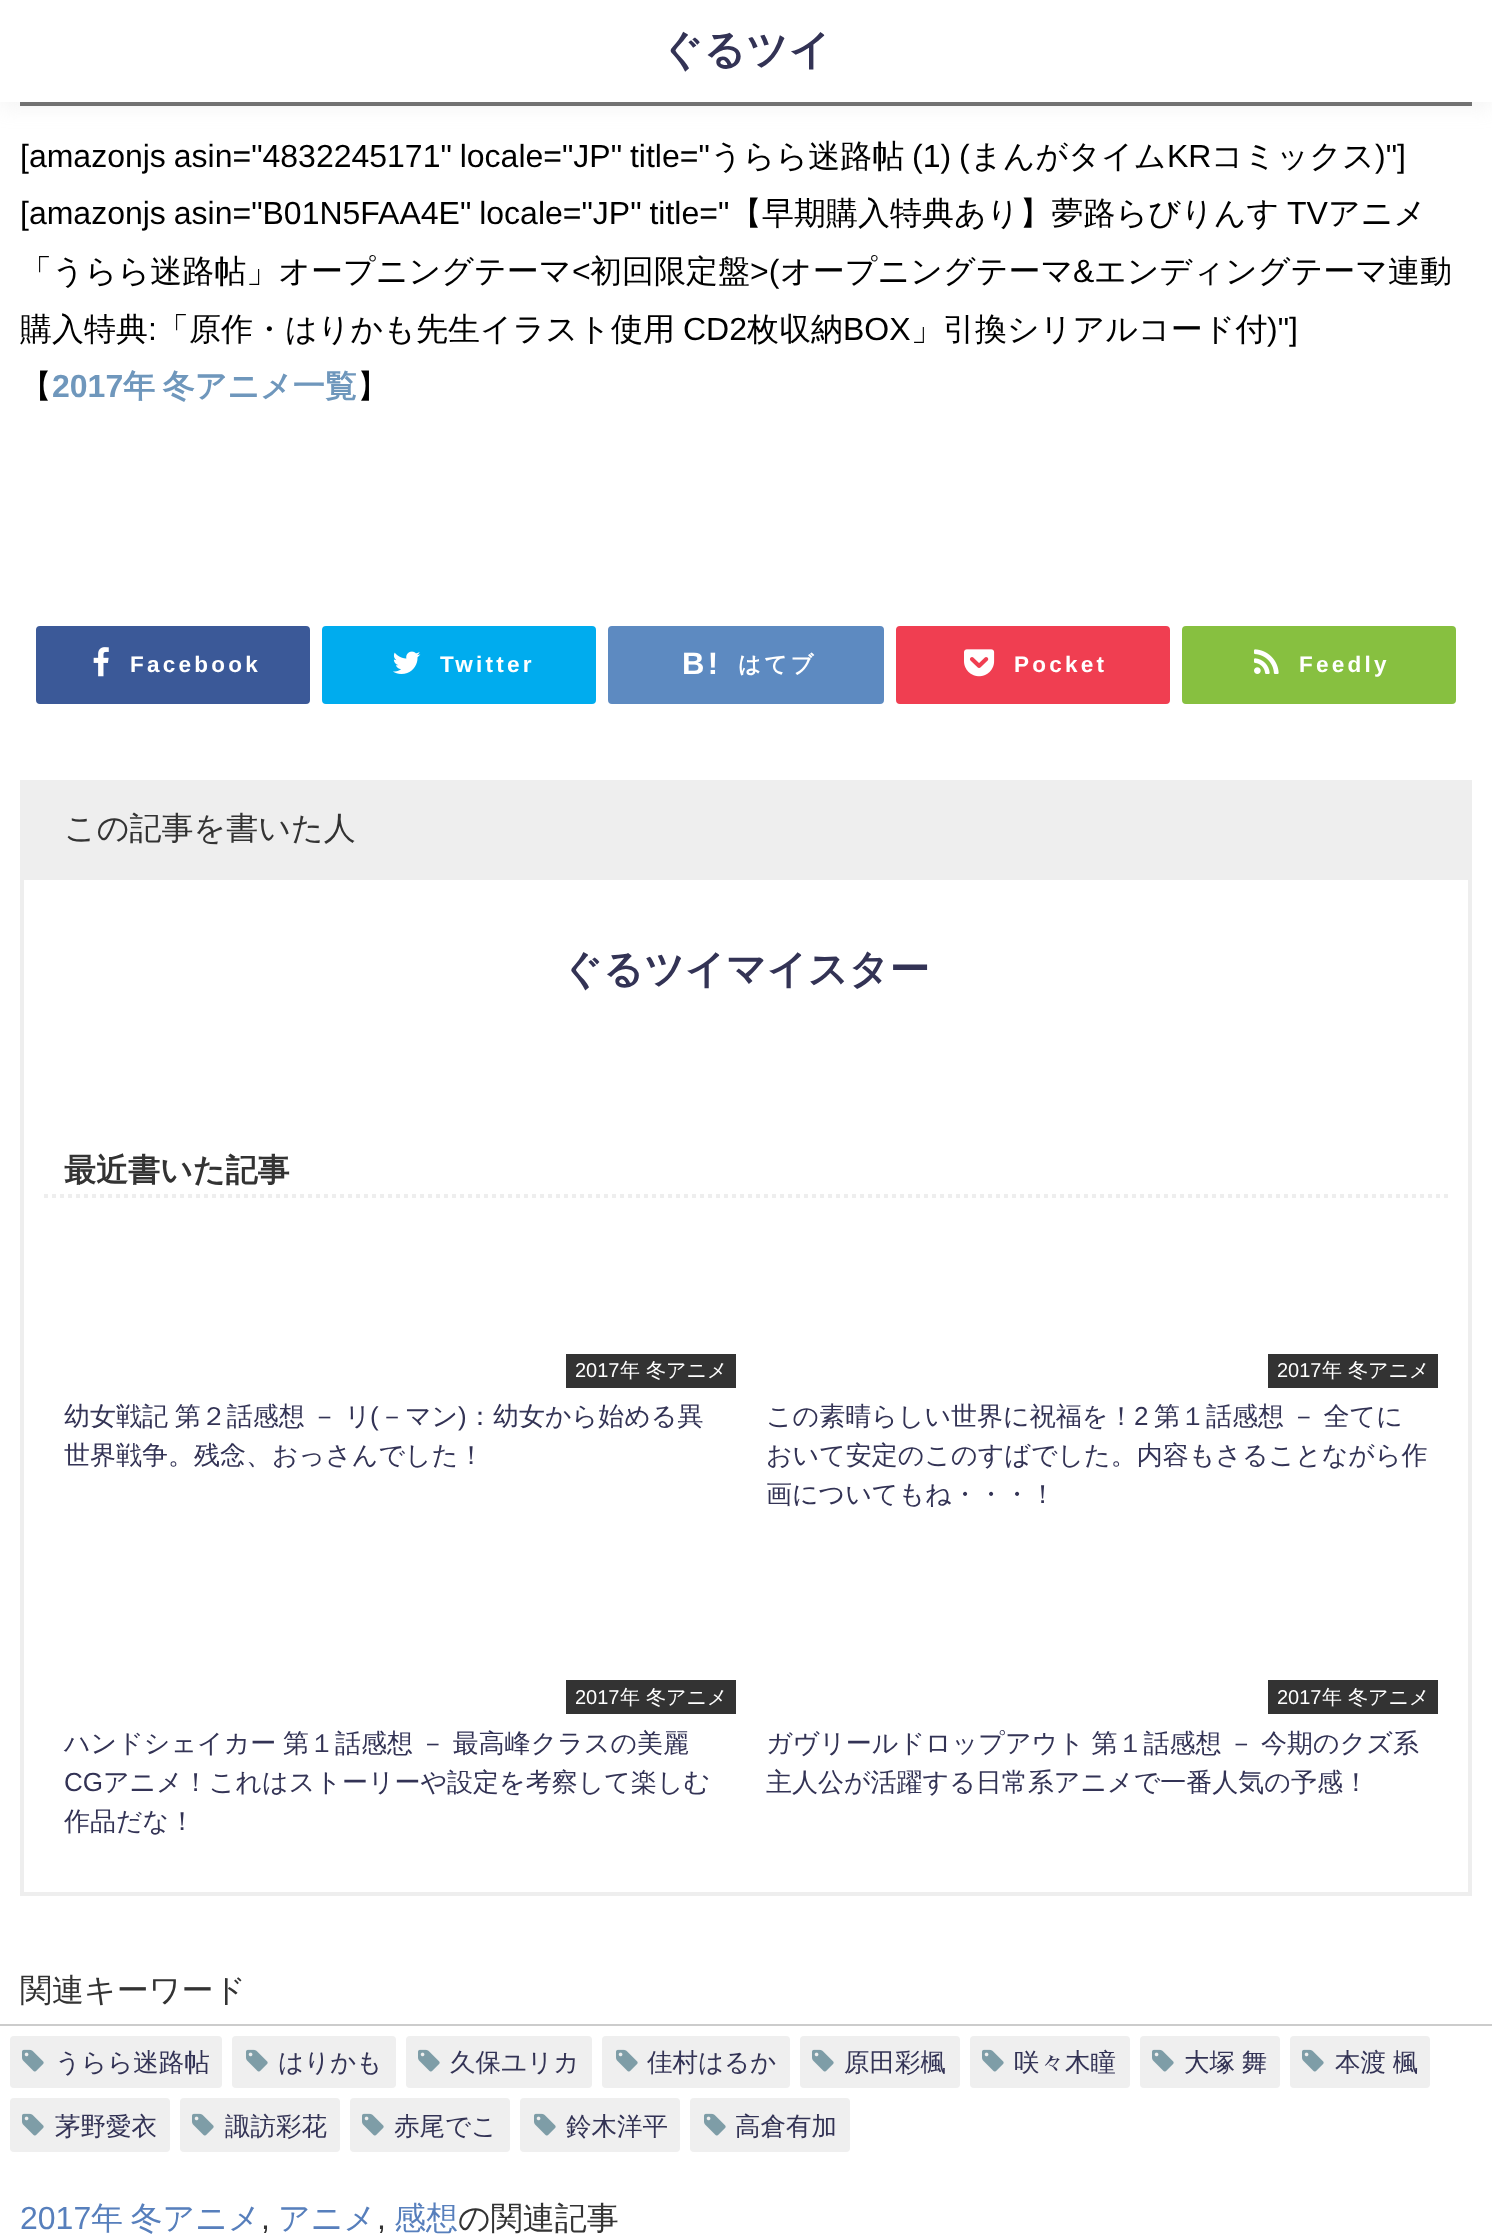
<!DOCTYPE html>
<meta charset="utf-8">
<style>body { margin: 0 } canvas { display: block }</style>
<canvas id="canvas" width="1492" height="2237"></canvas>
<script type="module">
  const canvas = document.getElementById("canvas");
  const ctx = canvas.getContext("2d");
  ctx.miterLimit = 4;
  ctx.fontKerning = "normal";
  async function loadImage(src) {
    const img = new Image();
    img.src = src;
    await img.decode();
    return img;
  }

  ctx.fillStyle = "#ffffff";
  ctx.fillRect(0, 0, 1492, 2237);
  ctx.fillStyle = "#666666";
  ctx.fillRect(20, 102, 1452, 4);
  ctx.fillStyle = "rgba(200, 200, 200, 0.2)";
  ctx.filter = "blur(10px)";
  ctx.beginPath();
  ctx.rect(0, 6, 1492, 102);
  ctx.fill();
  ctx.filter = "none";
  ctx.fillStyle = "#ffffff";
  ctx.fillRect(0, 0, 1492, 102);
  ctx.font = "bold 41.5px WenQuanYi Zen Hei";
  ctx.fillStyle = "#333355";
  ctx.fillText("ぐるツイ", 661, 64);
  ctx.wordSpacing = "-1px";
  ctx.font = "32px Liberation Sans";
  ctx.fillStyle = "#000000";
  ctx.fillText("[amazonjs asin=\"4832245171\" locale=\"JP\" title=\"", 20, 167);
  ctx.wordSpacing = "0px";
  ctx.font = "500 32px WenQuanYi Zen Hei";
  ctx.fillText("うらら迷路帖", 710, 167);
  ctx.wordSpacing = "-1px";
  ctx.font = "32px Liberation Sans";
  ctx.fillText("(1) (", 912, 167);
  ctx.wordSpacing = "0px";
  ctx.font = "500 32px WenQuanYi Zen Hei";
  ctx.fillText("まんがタイム", 970, 167);
  ctx.font = "32px Liberation Sans";
  ctx.fillText("KR", 1167, 167);
  ctx.font = "500 32px WenQuanYi Zen Hei";
  ctx.fillText("コミックス", 1211, 167);
  ctx.font = "32px Liberation Sans";
  ctx.fillText(")\"]", 1375, 167);
  ctx.wordSpacing = "-1px";
  ctx.fillText("[amazonjs asin=\"B01N5FAA4E\" locale=\"JP\" title=\"", 20, 224);
  ctx.wordSpacing = "0px";
  ctx.font = "500 32px WenQuanYi Zen Hei";
  ctx.fillText("【早期購入特典あり】夢路らびりんす", 730, 224);
  ctx.font = "32px Liberation Sans";
  ctx.fillText("TV", 1287, 224);
  ctx.font = "500 32px WenQuanYi Zen Hei";
  ctx.fillText("アニメ", 1328, 224);
  ctx.fillText("「うらら迷路帖」オープニングテーマ", 20, 282);
  ctx.font = "32px Liberation Sans";
  ctx.fillText("<", 572, 282);
  ctx.font = "500 32px WenQuanYi Zen Hei";
  ctx.fillText("初回限定盤", 590, 282);
  ctx.font = "32px Liberation Sans";
  ctx.fillText(">(", 750, 282);
  ctx.font = "500 32px WenQuanYi Zen Hei";
  ctx.fillText("オープニングテーマ", 780, 282);
  ctx.font = "32px Liberation Sans";
  ctx.fillText("&", 1073, 282);
  ctx.font = "500 32px WenQuanYi Zen Hei";
  ctx.fillText("エンディングテーマ連動", 1094, 282);
  ctx.fillText("購入特典", 20, 340);
  ctx.font = "32px Liberation Sans";
  ctx.fillText(":", 148, 340);
  ctx.font = "500 32px WenQuanYi Zen Hei";
  ctx.fillText("「原作・はりかも先生イラスト使用", 157, 340);
  ctx.font = "32px Liberation Sans";
  ctx.fillText("CD2", 683, 340);
  ctx.font = "500 32px WenQuanYi Zen Hei";
  ctx.fillText("枚収納", 747, 340);
  ctx.font = "32px Liberation Sans";
  ctx.fillText("BOX", 843, 340);
  ctx.font = "500 32px WenQuanYi Zen Hei";
  ctx.fillText("」引換シリアルコード付", 911, 340);
  ctx.font = "32px Liberation Sans";
  ctx.fillText(")\"]", 1267, 340);
  ctx.font = "500 32px WenQuanYi Zen Hei";
  ctx.fillText("【", 20, 397);
  ctx.font = "bold 32px Liberation Sans";
  ctx.fillStyle = "#6f97bc";
  ctx.fillText("2017", 52, 397);
  ctx.wordSpacing = "-2px";
  ctx.font = "bold 32px WenQuanYi Zen Hei";
  ctx.fillText("年 冬アニメ一覧", 123, 397);
  ctx.wordSpacing = "0px";
  ctx.font = "500 32px WenQuanYi Zen Hei";
  ctx.fillStyle = "#000000";
  ctx.fillText("】", 357, 397);
  ctx.fillStyle = "#3b5998";
  ctx.beginPath();
  ctx.roundRect(38, 628, 270, 74, 2);
  ctx.fill();
  ctx.strokeStyle = "#3b5998";
  ctx.lineWidth = 4;
  ctx.stroke();
  ctx.drawImage(await loadImage("img1.png"), 93, 647, 16, 30);
  ctx.letterSpacing = "3.25px";
  ctx.font = "bold 22.5px Liberation Sans";
  ctx.fillStyle = "#ffffff";
  ctx.fillText("Facebook", 130, 672);
  ctx.fillStyle = "#00acee";
  ctx.beginPath();
  ctx.roundRect(324, 628, 270, 74, 2);
  ctx.fill();
  ctx.strokeStyle = "#00acee";
  ctx.stroke();
  ctx.drawImage(await loadImage("img2.png"), 393, 651, 28, 23);
  ctx.fillStyle = "#ffffff";
  ctx.fillText("Twitter", 440, 672);
  ctx.fillStyle = "#5d8ac1";
  ctx.beginPath();
  ctx.roundRect(610, 628, 272, 74, 2);
  ctx.fill();
  ctx.strokeStyle = "#5d8ac1";
  ctx.stroke();
  ctx.font = "bold 31px Liberation Sans";
  ctx.fillStyle = "#ffffff";
  ctx.fillText("B!", 682, 674);
  ctx.font = "bold 22.5px WenQuanYi Zen Hei";
  ctx.fillText("はてブ", 738, 672);
  ctx.fillStyle = "#f03e51";
  ctx.beginPath();
  ctx.roundRect(898, 628, 270, 74, 2);
  ctx.fill();
  ctx.strokeStyle = "#f03e51";
  ctx.stroke();
  ctx.drawImage(await loadImage("img3.png"), 964, 649, 31, 28);
  ctx.font = "bold 22.5px Liberation Sans";
  ctx.fillStyle = "#ffffff";
  ctx.fillText("Pocket", 1014, 672);
  ctx.fillStyle = "#87c040";
  ctx.beginPath();
  ctx.roundRect(1184, 628, 270, 74, 2);
  ctx.fill();
  ctx.strokeStyle = "#87c040";
  ctx.stroke();
  ctx.drawImage(await loadImage("img4.png"), 1254, 649, 25, 25);
  ctx.fillStyle = "#ffffff";
  ctx.fillText("Feedly", 1299, 672);
  ctx.fillStyle = "#eeeeee";
  ctx.fillRect(20, 780, 1452, 96);
  ctx.letterSpacing = "0px";
  ctx.font = "500 32px WenQuanYi Zen Hei";
  ctx.fillStyle = "#333333";
  ctx.fillText("この記事を書いた人", 64, 839);
  ctx.strokeStyle = "#eeeeee";
  ctx.strokeRect(22, 878, 1448, 1016);
  ctx.font = "bold 40px WenQuanYi Zen Hei";
  ctx.fillStyle = "#333355";
  ctx.fillText("ぐるツイマイスター", 562, 983);
  ctx.beginPath();
  ctx.moveTo(44, 1196);
  ctx.lineTo(1448, 1196);
  ctx.setLineDash([4, 4]);
  ctx.stroke();
  ctx.font = "bold 32px WenQuanYi Zen Hei";
  ctx.fillStyle = "#333333";
  ctx.fillText("最近書いた記事", 64, 1181);
  ctx.fillRect(566, 1354, 170, 34);
  ctx.font = "20px Liberation Sans";
  ctx.fillStyle = "#ffffff";
  ctx.fillText("2017", 575, 1377);
  ctx.font = "500 20px WenQuanYi Zen Hei";
  ctx.fillText("年 冬アニメ", 620, 1377);
  ctx.wordSpacing = "-1px";
  ctx.font = "500 26px WenQuanYi Zen Hei";
  ctx.fillStyle = "#333355";
  ctx.fillText("幼女戦記 第２話感想 － リ", 64, 1425);
  ctx.wordSpacing = "0px";
  ctx.font = "26px Liberation Sans";
  ctx.fillText("(", 370, 1425);
  ctx.font = "500 26px WenQuanYi Zen Hei";
  ctx.fillText("－マン", 379, 1425);
  ctx.font = "26px Liberation Sans";
  ctx.fillText(")", 458, 1425);
  ctx.font = "500 26px WenQuanYi Zen Hei";
  ctx.fillText("：幼女から始める異", 467, 1425);
  ctx.fillText("世界戦争。残念、おっさんでした！", 64, 1464);
  ctx.fillStyle = "#333333";
  ctx.fillRect(1268, 1354, 170, 34);
  ctx.font = "20px Liberation Sans";
  ctx.fillStyle = "#ffffff";
  ctx.fillText("2017", 1277, 1377);
  ctx.font = "500 20px WenQuanYi Zen Hei";
  ctx.fillText("年 冬アニメ", 1322, 1377);
  ctx.font = "500 26px WenQuanYi Zen Hei";
  ctx.fillStyle = "#333355";
  ctx.fillText("この素晴らしい世界に祝福を！", 766, 1425);
  ctx.font = "26px Liberation Sans";
  ctx.fillText("2", 1134, 1425);
  ctx.wordSpacing = "-1px";
  ctx.font = "500 26px WenQuanYi Zen Hei";
  ctx.fillText("第１話感想 － 全てに", 1154, 1425);
  ctx.wordSpacing = "0px";
  ctx.fillText("おいて安定のこのすばでした。内容もさることながら作", 766, 1464);
  ctx.fillText("画についてもね・・・！", 766, 1503);
  ctx.fillStyle = "#333333";
  ctx.fillRect(566, 1680, 170, 34);
  ctx.font = "20px Liberation Sans";
  ctx.fillStyle = "#ffffff";
  ctx.fillText("2017", 575, 1704);
  ctx.font = "500 20px WenQuanYi Zen Hei";
  ctx.fillText("年 冬アニメ", 620, 1704);
  ctx.wordSpacing = "-1px";
  ctx.font = "500 26px WenQuanYi Zen Hei";
  ctx.fillStyle = "#333355";
  ctx.fillText("ハンドシェイカー 第１話感想 － 最高峰クラスの美麗", 64, 1752);
  ctx.wordSpacing = "0px";
  ctx.font = "26px Liberation Sans";
  ctx.fillText("CG", 64, 1791);
  ctx.font = "500 26px WenQuanYi Zen Hei";
  ctx.fillText("アニメ！これはストーリーや設定を考察して楽しむ", 103, 1791);
  ctx.fillText("作品だな！", 64, 1830);
  ctx.fillStyle = "#333333";
  ctx.fillRect(1268, 1680, 170, 34);
  ctx.font = "20px Liberation Sans";
  ctx.fillStyle = "#ffffff";
  ctx.fillText("2017", 1277, 1704);
  ctx.font = "500 20px WenQuanYi Zen Hei";
  ctx.fillText("年 冬アニメ", 1322, 1704);
  ctx.wordSpacing = "-1px";
  ctx.font = "500 26px WenQuanYi Zen Hei";
  ctx.fillStyle = "#333355";
  ctx.fillText("ガヴリールドロップアウト 第１話感想 － 今期のクズ系", 766, 1752);
  ctx.wordSpacing = "0px";
  ctx.fillText("主人公が活躍する日常系アニメで一番人気の予感！", 766, 1791);
  ctx.fillStyle = "#cccccc";
  ctx.fillRect(0, 2024, 1492, 2);
  ctx.font = "500 32px WenQuanYi Zen Hei";
  ctx.fillStyle = "#333333";
  ctx.fillText("関連キーワード", 20, 2001);
  ctx.fillStyle = "#efefef";
  ctx.beginPath();
  ctx.roundRect(10, 2036, 212, 52, 4);
  ctx.fill();
  ctx.drawImage(await loadImage("img5.png"), 22, 2049, 22, 23);
  ctx.font = "500 25.5px WenQuanYi Zen Hei";
  ctx.fillStyle = "#333355";
  ctx.fillText("うらら迷路帖", 55, 2071);
  ctx.fillStyle = "#efefef";
  ctx.beginPath();
  ctx.roundRect(232, 2036, 164, 52, 4);
  ctx.fill();
  ctx.drawImage(await loadImage("img5.png"), 246, 2049, 22, 23);
  ctx.fillStyle = "#333355";
  ctx.fillText("はりかも", 278, 2071);
  ctx.fillStyle = "#efefef";
  ctx.beginPath();
  ctx.roundRect(406, 2036, 186, 52, 4);
  ctx.fill();
  ctx.drawImage(await loadImage("img5.png"), 418, 2049, 22, 23);
  ctx.fillStyle = "#333355";
  ctx.fillText("久保ユリカ", 450, 2071);
  ctx.fillStyle = "#efefef";
  ctx.beginPath();
  ctx.roundRect(602, 2036, 188, 52, 4);
  ctx.fill();
  ctx.drawImage(await loadImage("img5.png"), 616, 2049, 22, 23);
  ctx.fillStyle = "#333355";
  ctx.fillText("佳村はるか", 647, 2071);
  ctx.fillStyle = "#efefef";
  ctx.beginPath();
  ctx.roundRect(800, 2036, 160, 52, 4);
  ctx.fill();
  ctx.drawImage(await loadImage("img5.png"), 812, 2049, 22, 23);
  ctx.fillStyle = "#333355";
  ctx.fillText("原田彩楓", 844, 2071);
  ctx.fillStyle = "#efefef";
  ctx.beginPath();
  ctx.roundRect(970, 2036, 160, 52, 4);
  ctx.fill();
  ctx.drawImage(await loadImage("img5.png"), 982, 2049, 22, 23);
  ctx.fillStyle = "#333355";
  ctx.fillText("咲々木瞳", 1014, 2071);
  ctx.fillStyle = "#efefef";
  ctx.beginPath();
  ctx.roundRect(1140, 2036, 140, 52, 4);
  ctx.fill();
  ctx.drawImage(await loadImage("img5.png"), 1152, 2049, 22, 23);
  ctx.wordSpacing = "-1px";
  ctx.fillStyle = "#333355";
  ctx.fillText("大塚 舞", 1184, 2071);
  ctx.fillStyle = "#efefef";
  ctx.beginPath();
  ctx.roundRect(1290, 2036, 140, 52, 4);
  ctx.fill();
  ctx.drawImage(await loadImage("img5.png"), 1302, 2049, 22, 23);
  ctx.fillStyle = "#333355";
  ctx.fillText("本渡 楓", 1335, 2071);
  ctx.fillStyle = "#efefef";
  ctx.beginPath();
  ctx.roundRect(10, 2098, 160, 54, 4);
  ctx.fill();
  ctx.drawImage(await loadImage("img5.png"), 22, 2113, 22, 23);
  ctx.wordSpacing = "0px";
  ctx.fillStyle = "#333355";
  ctx.fillText("茅野愛衣", 55, 2135);
  ctx.fillStyle = "#efefef";
  ctx.beginPath();
  ctx.roundRect(180, 2098, 160, 54, 4);
  ctx.fill();
  ctx.drawImage(await loadImage("img5.png"), 192, 2113, 22, 23);
  ctx.fillStyle = "#333355";
  ctx.fillText("諏訪彩花", 225, 2135);
  ctx.fillStyle = "#efefef";
  ctx.beginPath();
  ctx.roundRect(350, 2098, 160, 54, 4);
  ctx.fill();
  ctx.drawImage(await loadImage("img5.png"), 362, 2113, 22, 23);
  ctx.fillStyle = "#333355";
  ctx.fillText("赤尾でこ", 394, 2135);
  ctx.fillStyle = "#efefef";
  ctx.beginPath();
  ctx.roundRect(520, 2098, 160, 54, 4);
  ctx.fill();
  ctx.drawImage(await loadImage("img5.png"), 534, 2113, 22, 23);
  ctx.fillStyle = "#333355";
  ctx.fillText("鈴木洋平", 566, 2135);
  ctx.fillStyle = "#efefef";
  ctx.beginPath();
  ctx.roundRect(690, 2098, 160, 54, 4);
  ctx.fill();
  ctx.drawImage(await loadImage("img5.png"), 704, 2113, 22, 23);
  ctx.fillStyle = "#333355";
  ctx.fillText("高倉有加", 735, 2135);
  ctx.font = "32px Liberation Sans";
  ctx.fillStyle = "#577fbc";
  ctx.fillText("2017", 20, 2229);
  ctx.wordSpacing = "-2px";
  ctx.font = "500 32px WenQuanYi Zen Hei";
  ctx.fillText("年 冬アニメ", 91, 2229);
  ctx.wordSpacing = "0px";
  ctx.font = "32px Liberation Sans";
  ctx.fillStyle = "#333333";
  ctx.fillText(",", 261, 2229);
  ctx.font = "500 32px WenQuanYi Zen Hei";
  ctx.fillStyle = "#577fbc";
  ctx.fillText("アニメ", 278, 2229);
  ctx.font = "32px Liberation Sans";
  ctx.fillStyle = "#333333";
  ctx.fillText(",", 377, 2229);
  ctx.font = "500 32px WenQuanYi Zen Hei";
  ctx.fillStyle = "#577fbc";
  ctx.fillText("感想", 394, 2229);
  ctx.fillStyle = "#333333";
  ctx.fillText("の関連記事", 458, 2229);
</script>
